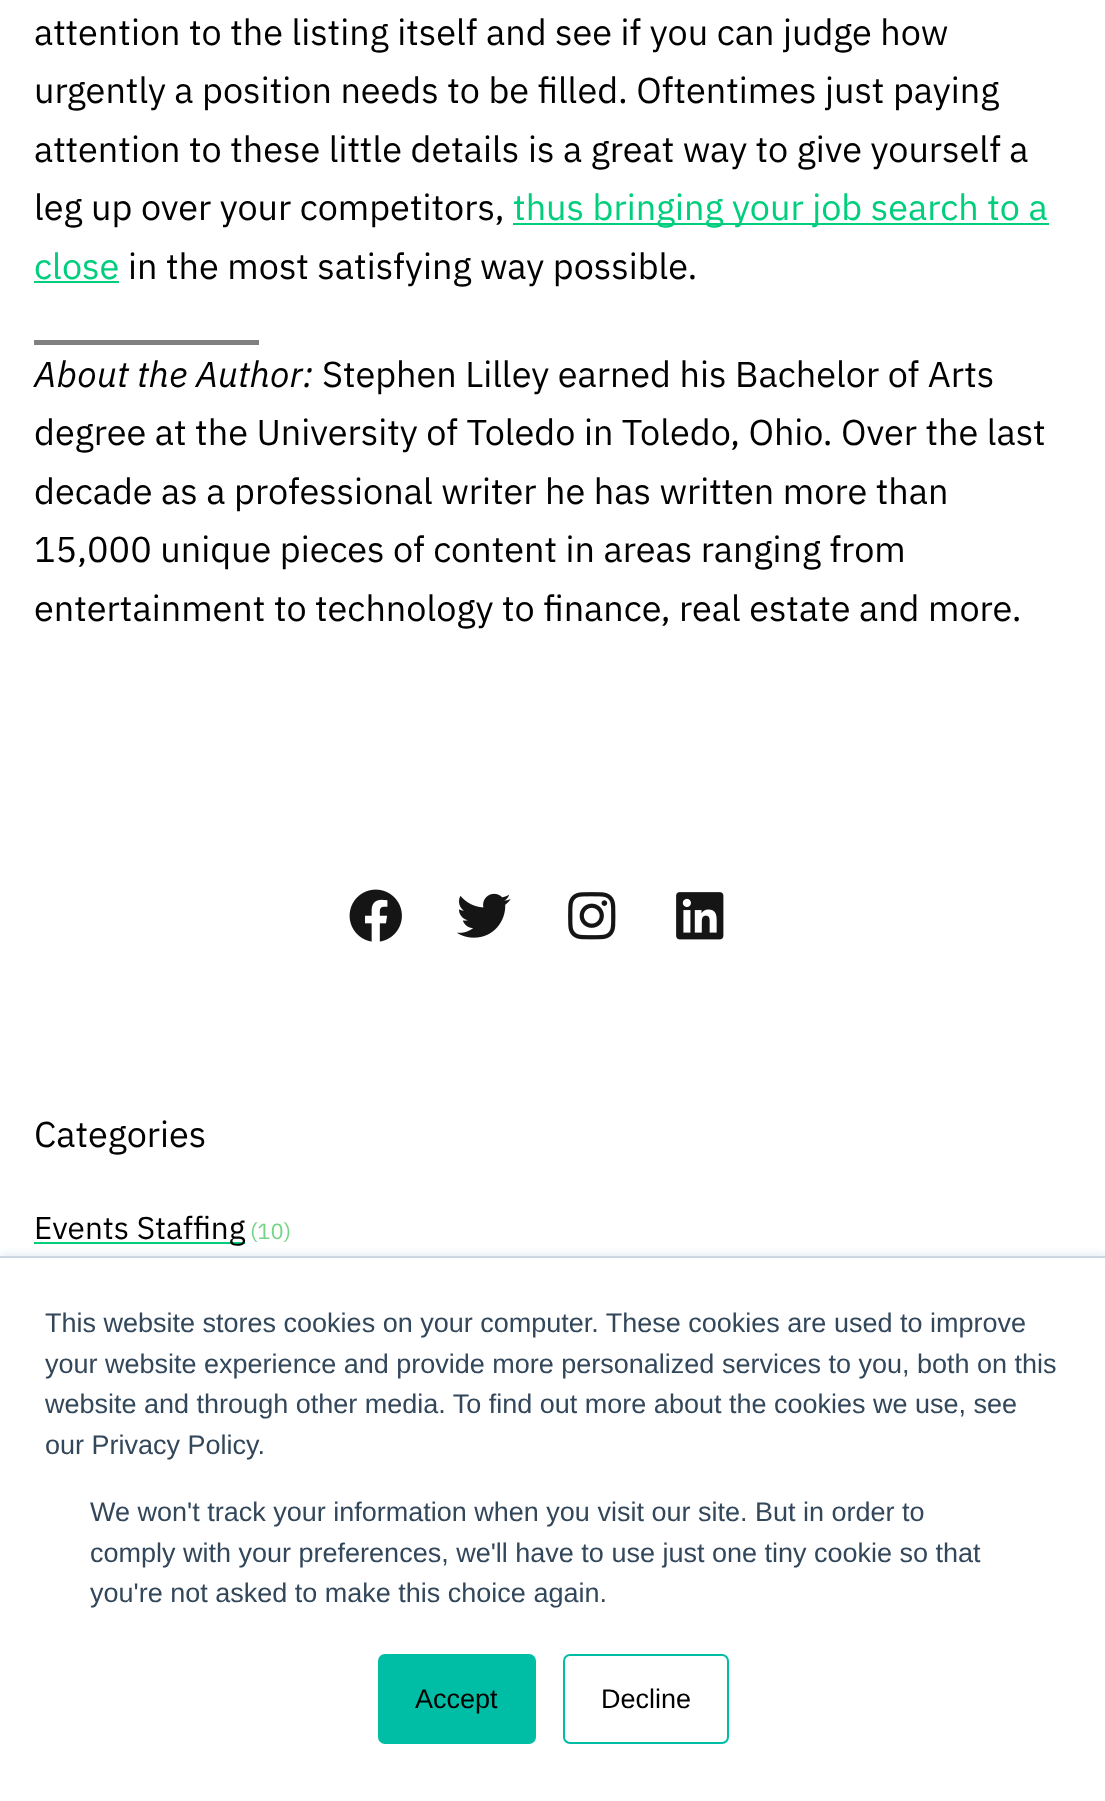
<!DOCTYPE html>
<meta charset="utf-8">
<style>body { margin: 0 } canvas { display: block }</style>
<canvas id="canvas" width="1105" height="1801"></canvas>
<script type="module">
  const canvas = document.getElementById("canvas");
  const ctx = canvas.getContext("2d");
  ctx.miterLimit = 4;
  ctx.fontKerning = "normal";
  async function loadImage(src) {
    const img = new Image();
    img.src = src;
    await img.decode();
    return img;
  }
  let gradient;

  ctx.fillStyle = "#ffffff";
  ctx.fillRect(0, 0, 1105, 1801);
  ctx.font = "36px IBM Plex Sans";
  ctx.fillStyle = "#000000";
  ctx.fillText("attention to the listing itself and see if you can judge how", 34, 45);
  ctx.fillText("urgently a position needs to be filled. Oftentimes just paying", 34, 103);
  ctx.fillText("attention to these little details is a great way to give yourself a", 34, 162);
  ctx.fillText("leg up over your competitors,", 34, 220);
  ctx.fillStyle = "#00ce7d";
  ctx.fillRect(513, 223, 536, 2);
  ctx.fillText("thus bringing your job search to a", 513, 220);
  ctx.fillText("close", 34, 279);
  ctx.fillRect(34, 281, 85, 2);
  ctx.fillStyle = "#000000";
  ctx.fillText("in the most satisfying way possible.", 128, 279);
  ctx.fillStyle = "#808080";
  ctx.fillRect(34, 340, 225, 5);
  ctx.font = "italic 36px IBM Plex Sans";
  ctx.fillStyle = "#000000";
  ctx.fillText("About the Author:", 34, 387);
  ctx.font = "36px IBM Plex Sans";
  ctx.fillText("Stephen Lilley earned his Bachelor of Arts", 322, 387);
  ctx.fillText("degree at the University of Toledo in Toledo, Ohio. Over the last", 34, 445);
  ctx.fillText("decade as a professional writer he has written more than", 34, 504);
  ctx.fillText("15,000 unique pieces of content in areas ranging from", 34, 562);
  ctx.fillText("entertainment to technology to finance, real estate and more.", 34, 621);
  ctx.drawImage(await loadImage("img1.png"), 349, 889, 53, 53);
  ctx.drawImage(await loadImage("img2.png"), 457, 893, 54, 45);
  ctx.drawImage(await loadImage("img3.png"), 568, 892, 48, 48);
  ctx.drawImage(await loadImage("img4.png"), 676, 892, 48, 48);
  ctx.fillText("Categories", 34, 1147);
  ctx.fillStyle = "#00ce7d";
  ctx.fillRect(34, 1242, 211, 2);
  ctx.font = "31.5px IBM Plex Sans";
  ctx.fillStyle = "#000000";
  ctx.fillText("Events Staffing", 34, 1239);
  ctx.font = "22px IBM Plex Sans";
  gradient = ctx.createLinearGradient(502, 1343, -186, 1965);
  gradient.addColorStop(0.08, "#73d683");
  gradient.addColorStop(1, "#41b7b7");
  ctx.fillStyle = gradient;
  ctx.fillText("(10)", 250, 1239);
  ctx.fillStyle = "#eaf0f6";
  ctx.filter = "blur(3.5px)";
  ctx.beginPath();
  ctx.rect(0, 1253, 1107, 547);
  ctx.fill();
  ctx.filter = "none";
  ctx.fillStyle = "#ffffff";
  ctx.fillRect(0, 1258, 1105, 543);
  ctx.fillStyle = "#cbd6e2";
  ctx.fillRect(0, 1256, 1105, 2);
  ctx.font = "27px Liberation Sans";
  ctx.fillStyle = "#33475b";
  ctx.fillText("This website stores cookies on your computer. These cookies are used to improve", 45, 1332);
  ctx.fillText("your website experience and provide more personalized services to you, both on this", 45, 1373);
  ctx.fillText("website and through other media. To find out more about the cookies we use, see", 45, 1413);
  ctx.fillText("our Privacy Policy.", 45, 1454);
  ctx.fillText("We won't track your information when you visit our site. But in order to", 90, 1521);
  ctx.fillText("comply with your preferences, we'll have to use just one tiny cookie so that", 90, 1562);
  ctx.fillText("you're not asked to make this choice again.", 90, 1602);
  ctx.fillStyle = "#00bda5";
  ctx.beginPath();
  ctx.roundRect(379, 1655, 156, 88, 6);
  ctx.fill();
  ctx.strokeStyle = "#00bda5";
  ctx.lineWidth = 2;
  ctx.stroke();
  ctx.fillStyle = "#000000";
  ctx.fillText("Accept", 415, 1708);
  ctx.beginPath();
  ctx.roundRect(564, 1655, 164, 88, 6);
  ctx.stroke();
  ctx.fillText("Decline", 601, 1708);
</script>
